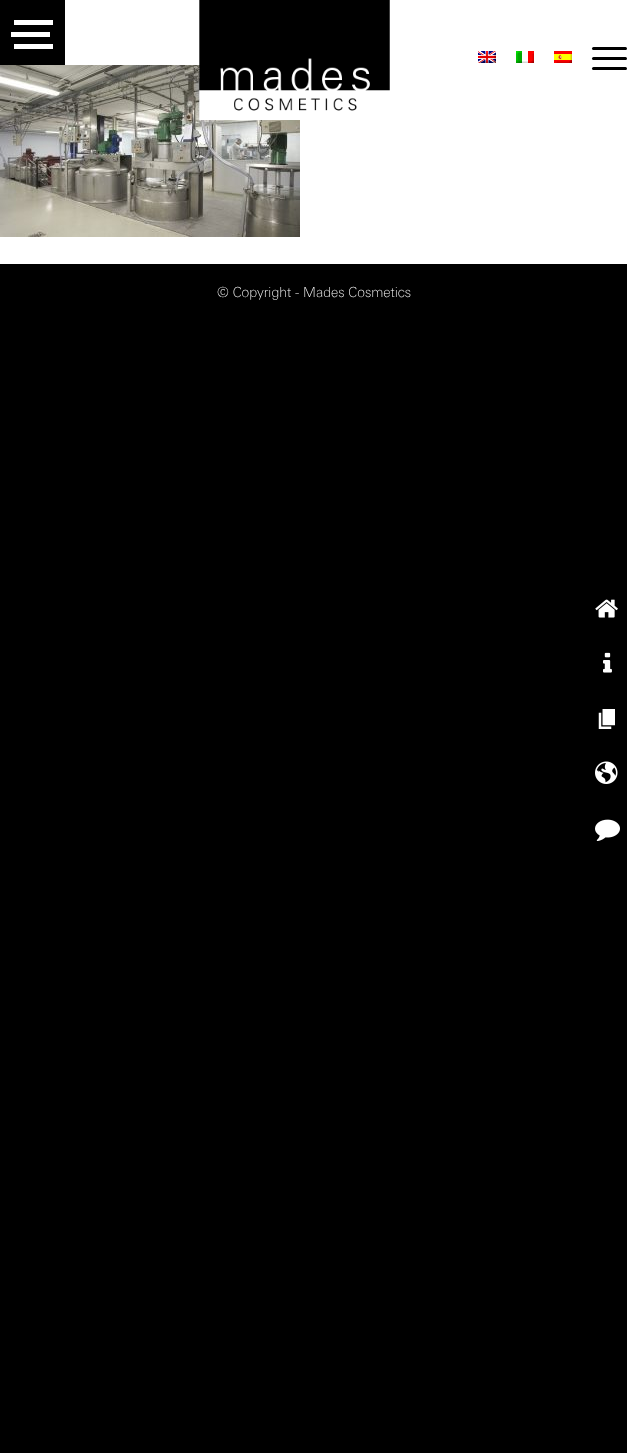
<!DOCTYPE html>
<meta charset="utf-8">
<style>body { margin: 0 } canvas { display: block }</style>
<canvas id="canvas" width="627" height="1453"></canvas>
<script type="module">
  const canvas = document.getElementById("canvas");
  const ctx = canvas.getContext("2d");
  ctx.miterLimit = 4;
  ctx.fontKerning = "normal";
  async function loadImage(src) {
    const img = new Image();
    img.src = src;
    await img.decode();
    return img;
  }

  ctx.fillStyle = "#000000";
  ctx.fillRect(0, 0, 627, 1453);
  ctx.fillStyle = "#ffffff";
  ctx.fillRect(0, 0, 627, 264);
  ctx.fillStyle = "#000000";
  ctx.fillRect(0, 0, 65, 65);
  ctx.fillStyle = "#ffffff";
  ctx.fillRect(11, 32, 39, 5);
  ctx.fillRect(14, 20, 39, 5);
  ctx.fillRect(14, 44, 39, 5);
  ctx.drawImage(await loadImage("img5.png"), 0, 65, 300, 172);
  ctx.drawImage(await loadImage("img1.png"), 199, 0, 191, 120);
  ctx.drawImage(await loadImage("img2.png"), 478, 51, 18, 12);
  ctx.drawImage(await loadImage("img3.png"), 516, 51, 18, 12);
  ctx.drawImage(await loadImage("img4.png"), 554, 51, 18, 12);
  ctx.fillStyle = "#000000";
  ctx.beginPath();
  ctx.roundRect(592, 57, 35, 3, 1.5);
  ctx.fill();
  ctx.beginPath();
  ctx.roundRect(592, 47, 35, 3, 1.5);
  ctx.fill();
  ctx.beginPath();
  ctx.roundRect(592, 67, 35, 3, 1.5);
  ctx.fill();
  ctx.font = "100 14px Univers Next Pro";
  ctx.fillStyle = "#ffffff";
  ctx.fillText("© Copyright - Mades Cosmetics", 217, 297);
  ctx.drawImage(await loadImage("img6.png"), 595, 599, 23, 19);
  ctx.drawImage(await loadImage("img7.png"), 603, 652, 9, 21);
  ctx.drawImage(await loadImage("img8.png"), 598, 709, 17, 20);
  ctx.drawImage(await loadImage("img9.png"), 595, 761, 23, 23);
  ctx.drawImage(await loadImage("img10.png"), 595, 819, 25, 22);
</script>
